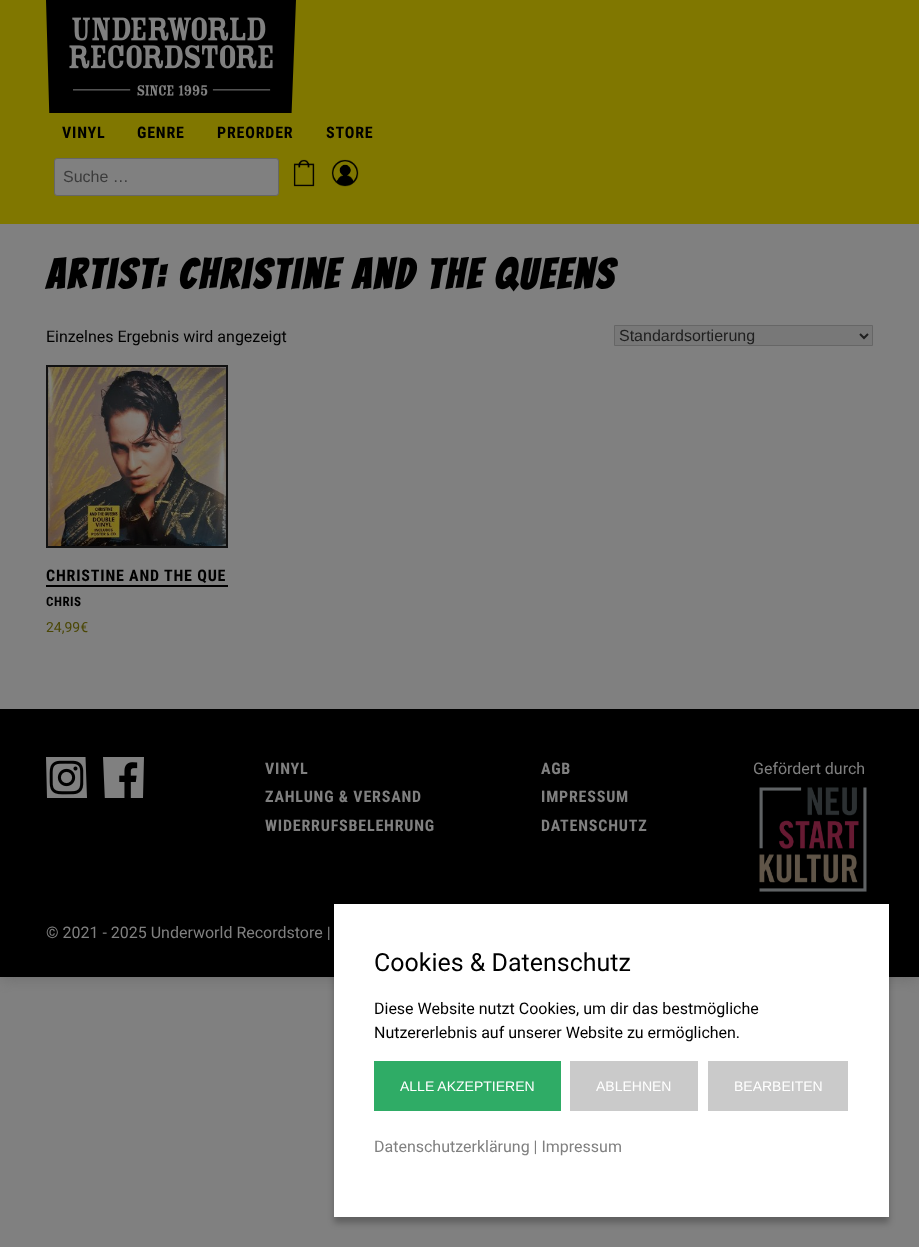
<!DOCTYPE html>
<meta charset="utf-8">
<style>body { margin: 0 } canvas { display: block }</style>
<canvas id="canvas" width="919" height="1247"></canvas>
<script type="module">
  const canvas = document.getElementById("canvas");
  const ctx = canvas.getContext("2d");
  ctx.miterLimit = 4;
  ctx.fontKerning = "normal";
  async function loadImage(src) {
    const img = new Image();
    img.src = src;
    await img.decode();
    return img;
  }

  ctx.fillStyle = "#808080";
  ctx.fillRect(0, 0, 919, 1247);
  ctx.save();
  ctx.beginPath();
  ctx.rect(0, 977, 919, 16);
  ctx.clip();
  ctx.fillStyle = "#6a6a6a";
  ctx.filter = "blur(8px)";
  ctx.beginPath();
  ctx.rect(0, 0, 919, 977);
  ctx.fill();
  ctx.filter = "none";
  ctx.restore();
  ctx.fillStyle = "#807700";
  ctx.fillRect(0, 0, 919, 224);
  ctx.drawImage(await loadImage("img1.png"), 46, 0, 250, 113);
  ctx.letterSpacing = "0.8px";
  ctx.font = "bold 16px Roboto Condensed";
  ctx.fillStyle = "#000000";
  ctx.fillText("VINYL", 62, 138);
  ctx.fillText("GENRE", 137, 138);
  ctx.fillText("PREORDER", 217, 138);
  ctx.fillText("STORE", 326, 138);
  ctx.fillStyle = "#808080";
  ctx.beginPath();
  ctx.roundRect(54.5, 158.5, 224, 37, 2.5);
  ctx.fill();
  ctx.strokeStyle = "#666666";
  ctx.stroke();
  ctx.letterSpacing = "0px";
  ctx.font = "16px Liberation Sans";
  ctx.fillStyle = "#3b3b3b";
  ctx.fillText("Suche …", 63, 182);
  ctx.drawImage(await loadImage("img2.png"), 293, 159, 22, 28);
  ctx.drawImage(await loadImage("img3.png"), 331, 159, 28, 28);
  ctx.letterSpacing = "2.9px";
  ctx.font = "bold 41.6px Bangers";
  ctx.fillStyle = "#000000";
  ctx.fillText("Artist: Christine And The Queens", 46, 289);
  ctx.letterSpacing = "0px";
  ctx.font = "16px Roboto";
  ctx.fillText("Einzelnes Ergebnis wird angezeigt", 46, 342);
  ctx.fillStyle = "#787878";
  ctx.beginPath();
  ctx.rect(614.5, 325.5, 258, 20);
  ctx.fill();
  ctx.stroke();
  ctx.beginPath();
  ctx.moveTo(860, 334);
  ctx.lineTo(864, 338);
  ctx.lineTo(868, 334);
  ctx.strokeStyle = "#202020";
  ctx.lineWidth = 2;
  ctx.stroke();
  ctx.font = "16px Liberation Sans";
  ctx.fillStyle = "#202020";
  ctx.fillText("Standardsortierung", 619, 341);
  ctx.strokeStyle = "#111111";
  ctx.strokeRect(47, 366, 180, 181);
  ctx.drawImage(await loadImage("img4.png"), 48, 367, 178, 179);
  ctx.letterSpacing = "0.8px";
  ctx.font = "bold 16px Roboto Condensed";
  ctx.fillStyle = "#000000";
  ctx.fillText("CHRISTINE AND THE QUE", 46, 581);
  ctx.fillRect(46, 585, 182, 2);
  ctx.letterSpacing = "0.5px";
  ctx.font = "bold 13px Roboto Condensed";
  ctx.fillText("CHRIS", 46, 606);
  ctx.letterSpacing = "0px";
  ctx.font = "14px Roboto";
  ctx.fillStyle = "#4b4705";
  ctx.fillText("24,99€", 46, 632);
  ctx.fillStyle = "#000000";
  ctx.fillRect(0, 709, 919, 268);
  ctx.drawImage(await loadImage("img5.png"), 46, 757, 41, 41);
  ctx.drawImage(await loadImage("img6.png"), 103, 757, 41, 41);
  ctx.letterSpacing = "0.8px";
  ctx.font = "bold 16px Roboto Condensed";
  ctx.fillStyle = "#808080";
  ctx.fillText("VINYL", 265, 774);
  ctx.fillText("ZAHLUNG & VERSAND", 265, 802);
  ctx.fillText("WIDERRUFSBELEHRUNG", 265, 831);
  ctx.fillText("AGB", 541, 774);
  ctx.fillText("IMPRESSUM", 541, 802);
  ctx.fillText("DATENSCHUTZ", 541, 831);
  ctx.letterSpacing = "0px";
  ctx.font = "16px Roboto";
  ctx.fillText("Gefördert durch", 753, 774);
  ctx.drawImage(await loadImage("img7.png"), 759, 787, 108, 105);
  ctx.fillText("© 2021 - 2025 Underworld Recordstore |", 46, 938);
  ctx.fillStyle = "rgba(0, 0, 0, 0.25)";
  ctx.filter = "blur(3px)";
  ctx.beginPath();
  ctx.rect(334, 910, 555, 313);
  ctx.fill();
  ctx.filter = "none";
  ctx.fillStyle = "#ffffff";
  ctx.fillRect(334, 904, 555, 313);
  ctx.font = "25px Roboto";
  ctx.fillStyle = "#000000";
  ctx.fillText("Cookies & Datenschutz", 374, 971);
  ctx.font = "16px Roboto";
  ctx.fillText("Diese Website nutzt Cookies, um dir das bestmögliche", 374, 1014);
  ctx.fillText("Nutzererlebnis auf unserer Website zu ermöglichen.", 374, 1038);
  ctx.fillStyle = "#2fac66";
  ctx.fillRect(374, 1061, 187, 50);
  ctx.font = "14px Liberation Sans";
  ctx.fillStyle = "#ffffff";
  ctx.fillText("ALLE AKZEPTIEREN", 400, 1091);
  ctx.fillStyle = "#cacaca";
  ctx.fillRect(570, 1061, 128, 50);
  ctx.fillStyle = "#ffffff";
  ctx.fillText("ABLEHNEN", 596, 1091);
  ctx.fillStyle = "#cacaca";
  ctx.fillRect(708, 1061, 140, 50);
  ctx.fillStyle = "#ffffff";
  ctx.fillText("BEARBEITEN", 734, 1091);
  ctx.font = "16px Roboto";
  ctx.fillStyle = "#808080";
  ctx.fillText("Datenschutzerklärung | Impressum", 374, 1152);
</script>
